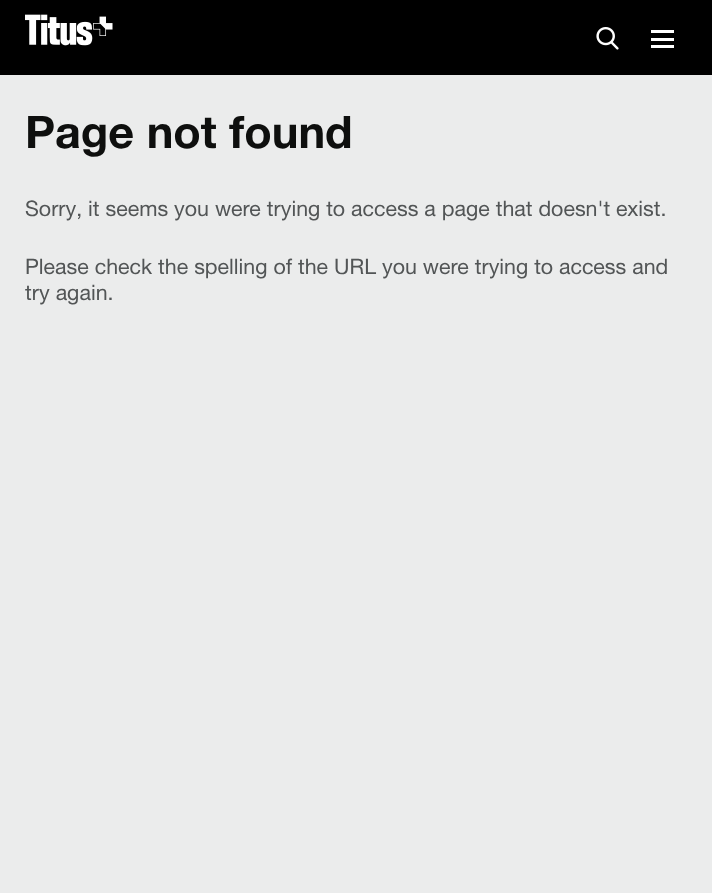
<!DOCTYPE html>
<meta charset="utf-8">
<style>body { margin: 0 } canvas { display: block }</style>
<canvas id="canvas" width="712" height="893"></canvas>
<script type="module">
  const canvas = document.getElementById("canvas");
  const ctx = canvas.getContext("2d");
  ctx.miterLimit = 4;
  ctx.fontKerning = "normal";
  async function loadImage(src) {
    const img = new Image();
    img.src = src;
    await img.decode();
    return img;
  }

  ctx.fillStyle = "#ebecec";
  ctx.fillRect(0, 0, 712, 893);
  ctx.fillStyle = "#000000";
  ctx.fillRect(0, 0, 712, 75);
  ctx.drawImage(await loadImage("img1.png"), 25, 14, 88, 32);
  ctx.drawImage(await loadImage("img2.png"), 596, 27, 23, 23);
  ctx.fillStyle = "#ffffff";
  ctx.fillRect(651, 30, 23, 3);
  ctx.fillRect(651, 38, 23, 3);
  ctx.fillRect(651, 45, 23, 3);
  ctx.font = "bold 45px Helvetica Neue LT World";
  ctx.fillStyle = "#0e0f0e";
  ctx.fillText("Page not found", 25, 148);
  ctx.font = "21.4px Helvetica Neue LT World";
  ctx.fillStyle = "#525556";
  ctx.fillText("Sorry, it seems you were trying to access a page that doesn't exist.", 25, 216);
  ctx.fillText("Please check the spelling of the URL you were trying to access and", 25, 274);
  ctx.fillText("try again.", 25, 300);
</script>
